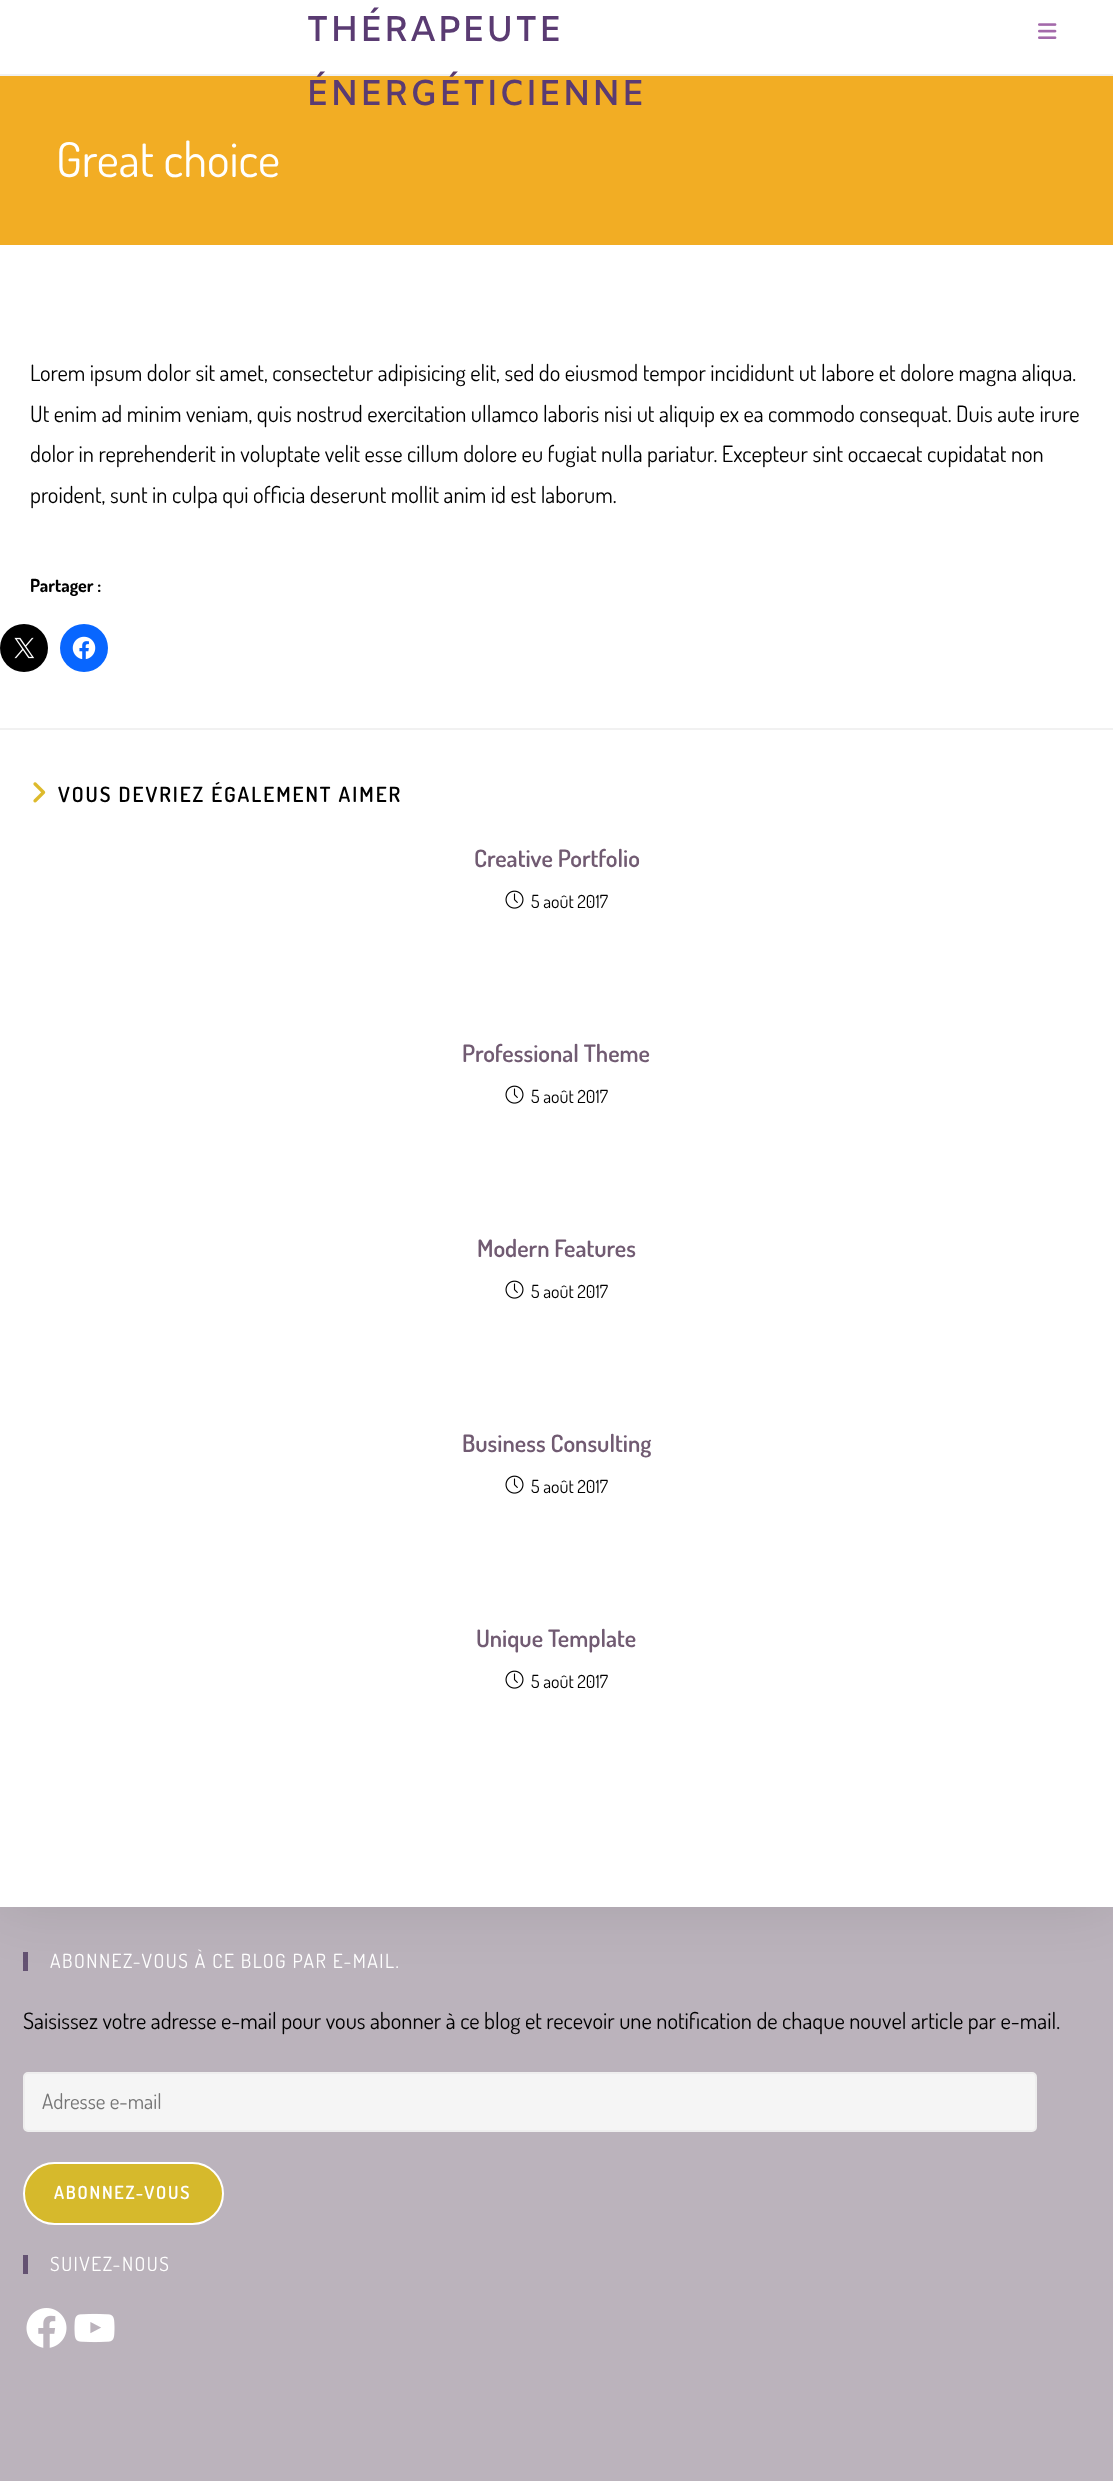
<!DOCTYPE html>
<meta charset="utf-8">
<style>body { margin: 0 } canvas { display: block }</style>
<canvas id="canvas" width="1113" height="2481"></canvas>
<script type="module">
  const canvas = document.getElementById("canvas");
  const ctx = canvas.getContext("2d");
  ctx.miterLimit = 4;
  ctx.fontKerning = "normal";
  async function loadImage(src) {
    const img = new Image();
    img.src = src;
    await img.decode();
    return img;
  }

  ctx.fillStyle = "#bbb3bc";
  ctx.fillRect(0, 0, 1113, 2481);
  ctx.fillStyle = "#645272";
  ctx.fillRect(23, 1952, 5, 19);
  ctx.fillStyle = "rgba(0, 0, 0, 0.1)";
  ctx.filter = "blur(30px)";
  ctx.beginPath();
  ctx.rect(0, 75, 1113, 1832);
  ctx.fill();
  ctx.filter = "none";
  ctx.fillStyle = "#ffffff";
  ctx.fillRect(0, 0, 1113, 74);
  ctx.fillStyle = "#f1f1f1";
  ctx.fillRect(0, 74, 1113, 2);
  ctx.letterSpacing = "0.9px";
  ctx.font = "600 36px Amiko";
  ctx.fillStyle = "#5a3b72";
  ctx.fillText("THÉRAPEUTE", 306, 41);
  ctx.fillStyle = "#f2ad24";
  ctx.fillRect(0, 76, 1113, 169);
  ctx.fillStyle = "#5a3b72";
  ctx.fillText("ÉNERGÉTICIENNE", 306, 105);
  ctx.drawImage(await loadImage("img1.png"), 1038, 23, 19, 16);
  ctx.fillStyle = "#ffffff";
  ctx.fillRect(0, 245, 1113, 1662);
  ctx.letterSpacing = "0px";
  ctx.font = "48px Dosis";
  ctx.fillText("Great choice", 56, 177);
  ctx.font = "22.5px Dosis";
  ctx.fillStyle = "#000000";
  ctx.fillText("Lorem ipsum dolor sit amet, consectetur adipisicing elit, sed do eiusmod tempor incididunt ut labore et dolore magna aliqua.", 30, 381);
  ctx.fillText("Ut enim ad minim veniam, quis nostrud exercitation ullamco laboris nisi ut aliquip ex ea commodo consequat. Duis aute irure", 30, 422);
  ctx.fillText("dolor in reprehenderit in voluptate velit esse cillum dolore eu fugiat nulla pariatur. Excepteur sint occaecat cupidatat non", 30, 462);
  ctx.fillText("proident, sunt in culpa qui officia deserunt mollit anim id est laborum.", 30, 503);
  ctx.font = "bold 18px Dosis";
  ctx.fillText("Partager :", 30, 592);
  ctx.beginPath();
  ctx.arc(24, 648, 24, 0, Math.PI * 2);
  ctx.fill();
  ctx.drawImage(await loadImage("img2.png"), 14, 637, 21, 22);
  ctx.fillStyle = "#0866ff";
  ctx.beginPath();
  ctx.arc(84, 648, 24, 0, Math.PI * 2);
  ctx.fill();
  ctx.drawImage(await loadImage("img3.png"), 72, 636, 24, 23);
  ctx.fillStyle = "#f1f1f1";
  ctx.fillRect(0, 728, 1113, 2);
  ctx.drawImage(await loadImage("img4.png"), 33, 782, 13, 21);
  ctx.letterSpacing = "1.95px";
  ctx.font = "600 21px Dosis";
  ctx.fillStyle = "#000000";
  ctx.fillText("VOUS DEVRIEZ ÉGALEMENT AIMER", 58, 802);
  ctx.letterSpacing = "0px";
  ctx.font = "600 24px Dosis";
  ctx.fillStyle = "#715b72";
  ctx.fillText("Creative Portfolio", 474, 867);
  ctx.drawImage(await loadImage("img5.png"), 505, 890, 19, 19);
  ctx.font = "18px Dosis";
  ctx.fillStyle = "#000000";
  ctx.fillText("5 août 2017", 531, 908);
  ctx.font = "600 24px Dosis";
  ctx.fillStyle = "#715b72";
  ctx.fillText("Professional Theme", 462, 1062);
  ctx.drawImage(await loadImage("img5.png"), 505, 1085, 19, 19);
  ctx.font = "18px Dosis";
  ctx.fillStyle = "#000000";
  ctx.fillText("5 août 2017", 531, 1103);
  ctx.font = "600 24px Dosis";
  ctx.fillStyle = "#715b72";
  ctx.fillText("Modern Features", 477, 1257);
  ctx.drawImage(await loadImage("img5.png"), 505, 1280, 19, 19);
  ctx.font = "18px Dosis";
  ctx.fillStyle = "#000000";
  ctx.fillText("5 août 2017", 531, 1298);
  ctx.font = "600 24px Dosis";
  ctx.fillStyle = "#715b72";
  ctx.fillText("Business Consulting", 462, 1452);
  ctx.drawImage(await loadImage("img5.png"), 505, 1475, 19, 19);
  ctx.font = "18px Dosis";
  ctx.fillStyle = "#000000";
  ctx.fillText("5 août 2017", 531, 1493);
  ctx.font = "600 24px Dosis";
  ctx.fillStyle = "#715b72";
  ctx.fillText("Unique Template", 476, 1647);
  ctx.drawImage(await loadImage("img5.png"), 505, 1670, 19, 19);
  ctx.font = "18px Dosis";
  ctx.fillStyle = "#000000";
  ctx.fillText("5 août 2017", 531, 1688);
  ctx.letterSpacing = "1.5px";
  ctx.font = "19.5px Dosis";
  ctx.fillStyle = "#ffffff";
  ctx.fillText("ABONNEZ-VOUS À CE BLOG PAR E-MAIL.", 50, 1968);
  ctx.letterSpacing = "0px";
  ctx.font = "22.5px Dosis";
  ctx.fillStyle = "#000000";
  ctx.fillText("Saisissez votre adresse e-mail pour vous abonner à ce blog et recevoir une notification de chaque nouvel article par e-mail.", 23, 2029);
  ctx.fillStyle = "#f5f5f5";
  ctx.beginPath();
  ctx.roundRect(24, 2073, 1012, 58, 4);
  ctx.fill();
  ctx.strokeStyle = "#eeeeee";
  ctx.lineWidth = 2;
  ctx.stroke();
  ctx.font = "21px Dosis";
  ctx.fillStyle = "#757575";
  ctx.fillText("Adresse e-mail", 42, 2109);
  ctx.fillStyle = "#d6b92c";
  ctx.beginPath();
  ctx.roundRect(24, 2163, 199, 61, 30.5);
  ctx.fill();
  ctx.strokeStyle = "#ffffff";
  ctx.stroke();
  ctx.letterSpacing = "1.75px";
  ctx.font = "600 18px Dosis";
  ctx.fillStyle = "#ffffff";
  ctx.fillText("ABONNEZ-VOUS", 54, 2199);
  ctx.fillStyle = "#645272";
  ctx.fillRect(23, 2255, 5, 19);
  ctx.letterSpacing = "1.5px";
  ctx.font = "19.5px Dosis";
  ctx.fillStyle = "#ffffff";
  ctx.fillText("SUIVEZ-NOUS", 50, 2271);
  ctx.drawImage(await loadImage("img6.png"), 26, 2308, 41, 40);
  ctx.drawImage(await loadImage("img7.png"), 74, 2313, 41, 30);
</script>
